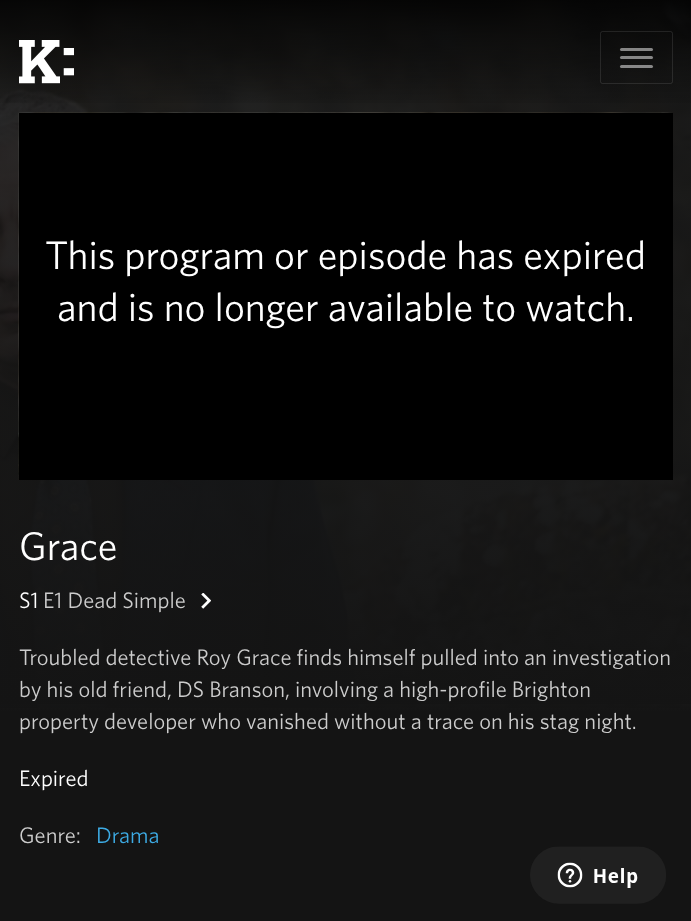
<!DOCTYPE html>
<meta charset="utf-8">
<style>body { margin: 0 } canvas { display: block }</style>
<canvas id="canvas" width="691" height="921"></canvas>
<script type="module">
  const canvas = document.getElementById("canvas");
  const ctx = canvas.getContext("2d");
  ctx.miterLimit = 4;
  ctx.fontKerning = "normal";
  async function loadImage(src) {
    const img = new Image();
    img.src = src;
    await img.decode();
    return img;
  }
  let gradient;

  ctx.fillStyle = "#ffffff";
  ctx.fillRect(0, 0, 691, 921);
  ctx.drawImage(await loadImage("img1.png"), 0, 0, 691, 708);
  gradient = ctx.createLinearGradient(346, 112, 346, 711);
  gradient.addColorStop(0.1, "rgba(20, 20, 20, 0)");
  gradient.addColorStop(1, "#141414");
  ctx.fillStyle = gradient;
  ctx.fillRect(0, 184, 691, 527);
  gradient = ctx.createLinearGradient(346, 0, 346, 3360);
  gradient.addColorStop(0, "rgba(20, 20, 20, 0)");
  gradient.addColorStop(0.75, "#141414");
  gradient.addColorStop(1, "#141414");
  ctx.fillStyle = gradient;
  ctx.fillRect(0, 54, 691, 635);
  gradient = ctx.createLinearGradient(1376, 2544, -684, 816);
  gradient.addColorStop(0, "rgba(20, 20, 20, 0)");
  gradient.addColorStop(0.5, "rgba(20, 20, 20, 0.9)");
  gradient.addColorStop(1, "rgba(20, 20, 20, 0.9)");
  ctx.fillStyle = gradient;
  ctx.fillRect(0, 0, 691, 704);
  gradient = ctx.createLinearGradient(346, 0, 346, 113);
  gradient.addColorStop(0, "rgba(0, 0, 0, 0.8)");
  gradient.addColorStop(1, "rgba(0, 0, 0, 0)");
  ctx.fillStyle = gradient;
  ctx.fillRect(0, 0, 691, 103);
  ctx.drawImage(await loadImage("img2.png"), 19, 40, 55, 44);
  ctx.beginPath();
  ctx.roundRect(600.5, 31.5, 72, 52, 2);
  ctx.strokeStyle = "rgba(255, 255, 255, 0.1)";
  ctx.stroke();
  ctx.fillStyle = "#868686";
  ctx.beginPath();
  ctx.roundRect(620, 48, 33, 3, 1.5);
  ctx.fill();
  ctx.fillStyle = "#878787";
  ctx.beginPath();
  ctx.roundRect(620, 56, 33, 3, 1.5);
  ctx.fill();
  ctx.fillStyle = "#888888";
  ctx.beginPath();
  ctx.roundRect(620, 65, 33, 3, 1.5);
  ctx.fill();
  ctx.drawImage(await loadImage("img3.png"), 18, 112, 655, 368);
  ctx.fillStyle = "#000000";
  ctx.fillRect(19, 113, 654, 367);
  ctx.font = "40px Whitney";
  ctx.fillStyle = "#ffffff";
  ctx.fillText("This program or episode has expired", 45, 269);
  ctx.fillText("and is no longer available to watch.", 57, 321);
  ctx.fillText("Grace", 19, 560);
  ctx.font = "22.5px Whitney";
  ctx.fillText("S1", 19, 608);
  ctx.fillStyle = "#cccccc";
  ctx.fillText("E1 Dead Simple", 43, 608);
  ctx.drawImage(await loadImage("img4.png"), 201, 593, 10, 16);
  ctx.fillText("Troubled detective Roy Grace finds himself pulled into an investigation", 19, 665);
  ctx.fillText("by his old friend, DS Branson, involving a high-profile Brighton", 19, 697);
  ctx.fillStyle = "#141414";
  ctx.fillRect(0, 711, 691, 210);
  ctx.fillStyle = "#cccccc";
  ctx.fillText("property developer who vanished without a trace on his stag night.", 19, 729);
  ctx.fillStyle = "#ffffff";
  ctx.fillText("Expired", 19, 786);
  ctx.fillStyle = "#cccccc";
  ctx.fillText("Genre:", 19, 843);
  ctx.fillStyle = "#3dabe4";
  ctx.fillText("Drama", 96, 843);
  ctx.drawImage(await loadImage("img5.png"), 530, 846, 136, 58);
</script>
